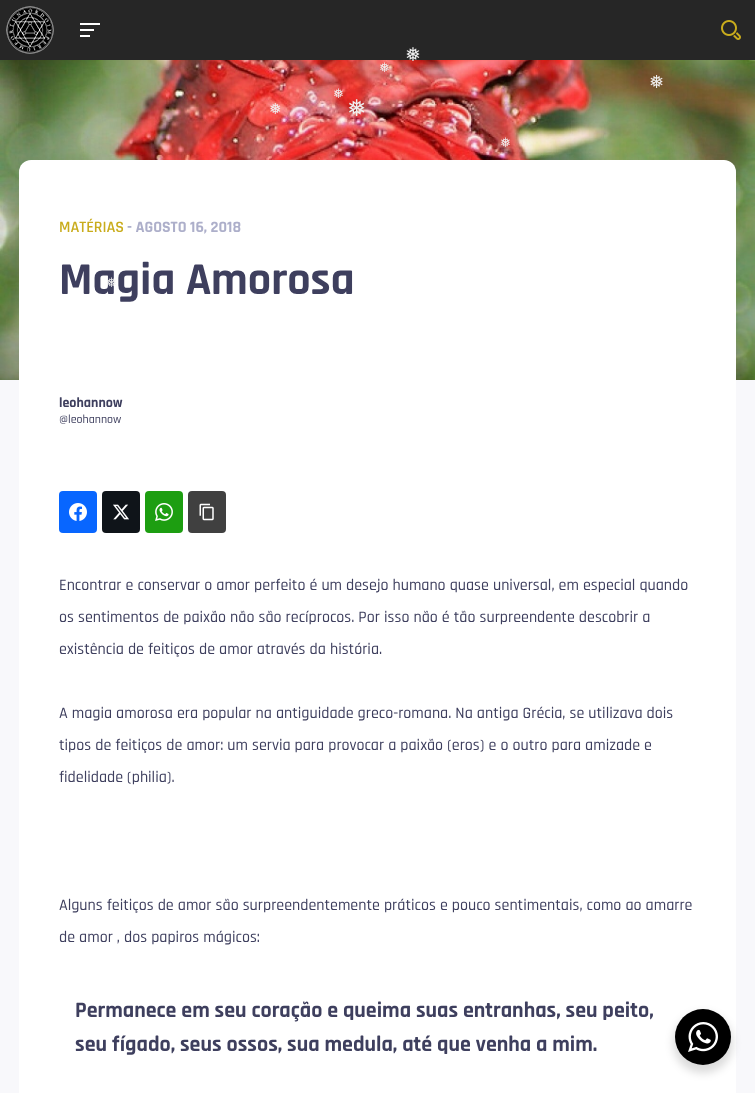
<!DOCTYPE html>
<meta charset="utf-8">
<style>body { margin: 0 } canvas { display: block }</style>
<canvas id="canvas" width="755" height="1093"></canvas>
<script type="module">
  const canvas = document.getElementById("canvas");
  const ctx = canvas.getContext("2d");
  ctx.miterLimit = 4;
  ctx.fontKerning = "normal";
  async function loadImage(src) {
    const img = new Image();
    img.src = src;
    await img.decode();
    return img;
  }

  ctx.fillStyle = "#f8f8fb";
  ctx.fillRect(0, 0, 755, 1093);
  ctx.fillStyle = "#262626";
  ctx.fillRect(0, 0, 755, 60);
  ctx.drawImage(await loadImage("img1.png"), 6, 6, 48, 48);
  ctx.fillStyle = "#ffffff";
  ctx.fillRect(80, 23, 20, 2);
  ctx.fillRect(80, 29, 14, 2);
  ctx.fillRect(80, 35, 10, 2);
  ctx.drawImage(await loadImage("img2.png"), 721, 20, 20, 20);
  ctx.drawImage(await loadImage("img3.png"), 0, 60, 755, 320);
  ctx.font = "19px DejaVu Sans";
  ctx.fillStyle = "#efefef";
  ctx.fillText("❅", 405, 61);
  ctx.font = "13px DejaVu Sans";
  ctx.fillText("❅", 379, 72);
  ctx.font = "18px DejaVu Sans";
  ctx.fillText("❅", 649, 88);
  ctx.font = "13px DejaVu Sans";
  ctx.fillText("❅", 333, 98);
  ctx.font = "15px DejaVu Sans";
  ctx.fillText("❅", 269, 114);
  ctx.font = "23px DejaVu Sans";
  ctx.fillText("❅", 347, 116);
  ctx.font = "13px DejaVu Sans";
  ctx.fillText("❅", 500, 147);
  ctx.fillStyle = "#ffffff";
  ctx.beginPath();
  ctx.roundRect(19, 160, 717, 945, 12);
  ctx.fill();
  ctx.font = "bold 46px Rajdhani";
  ctx.fillStyle = "#3e3f5e";
  ctx.fillText("Magia Amorosa", 59, 294);
  ctx.font = "13px DejaVu Sans";
  ctx.fillStyle = "#efefef";
  ctx.fillText("❅", 106, 287);
  ctx.font = "600 16px Rajdhani";
  ctx.fillStyle = "#c9ac1c";
  ctx.fillText("MATÉRIAS", 59, 232);
  ctx.font = "bold 16px Rajdhani";
  ctx.fillStyle = "#adafca";
  ctx.fillText("- AGOSTO 16, 2018", 127, 232);
  ctx.font = "bold 14px Rajdhani";
  ctx.fillStyle = "#3e3f5e";
  ctx.fillText("leohannow", 59, 407);
  ctx.font = "500 12px Rajdhani";
  ctx.fillText("@leohannow", 59, 423);
  ctx.fillStyle = "#0866ff";
  ctx.beginPath();
  ctx.roundRect(59, 491, 38, 42, 4);
  ctx.fill();
  ctx.drawImage(await loadImage("img4.png"), 69, 503, 18, 18);
  ctx.fillStyle = "#0f1419";
  ctx.beginPath();
  ctx.roundRect(102, 491, 38, 42, 4);
  ctx.fill();
  ctx.drawImage(await loadImage("img5.png"), 113, 504, 16, 16);
  ctx.fillStyle = "#1d9e11";
  ctx.beginPath();
  ctx.roundRect(145, 491, 38, 42, 4);
  ctx.fill();
  ctx.drawImage(await loadImage("img6.png"), 155, 503, 18, 18);
  ctx.fillStyle = "#404040";
  ctx.beginPath();
  ctx.roundRect(188, 491, 38, 42, 4);
  ctx.fill();
  ctx.drawImage(await loadImage("img7.png"), 199, 503, 15, 18);
  ctx.font = "500 16px Rajdhani";
  ctx.fillStyle = "#3e3f5e";
  ctx.fillText("Encontrar e conservar o amor perfeito é um desejo humano quase universal, em especial quando", 59, 590);
  ctx.fillText("os sentimentos de paixão não são recíprocos. Por isso não é tão surpreendente descobrir a", 59, 622);
  ctx.fillText("existência de feitiços de amor através da história.", 59, 654);
  ctx.fillText("A magia amorosa era popular na antiguidade greco-romana. Na antiga Grécia, se utilizava dois", 59, 718);
  ctx.fillText("tipos de feitiços de amor: um servia para provocar a paixão (eros) e o outro para amizade e", 59, 750);
  ctx.fillText("fidelidade (philia).", 59, 782);
  ctx.fillText("Alguns feitiços de amor são surpreendentemente práticos e pouco sentimentais, como ao amarre", 59, 910);
  ctx.fillText("de amor , dos papiros mágicos:", 59, 942);
  ctx.font = "bold 22px Rajdhani";
  ctx.fillText("Permanece em seu coração e queima suas entranhas, seu peito,", 75, 1017);
  ctx.fillText("seu fígado, seus ossos, sua medula, até que venha a mim.", 75, 1051);
  ctx.fillStyle = "rgba(0, 0, 0, 0.14)";
  ctx.filter = "blur(4px)";
  ctx.beginPath();
  ctx.roundRect(673, 1013, 60, 60, 30);
  ctx.fill();
  ctx.filter = "none";
  ctx.fillStyle = "#000000";
  ctx.beginPath();
  ctx.arc(703, 1037, 28, 0, Math.PI * 2);
  ctx.fill();
  ctx.drawImage(await loadImage("img8.png"), 688, 1022, 30, 30);
</script>
